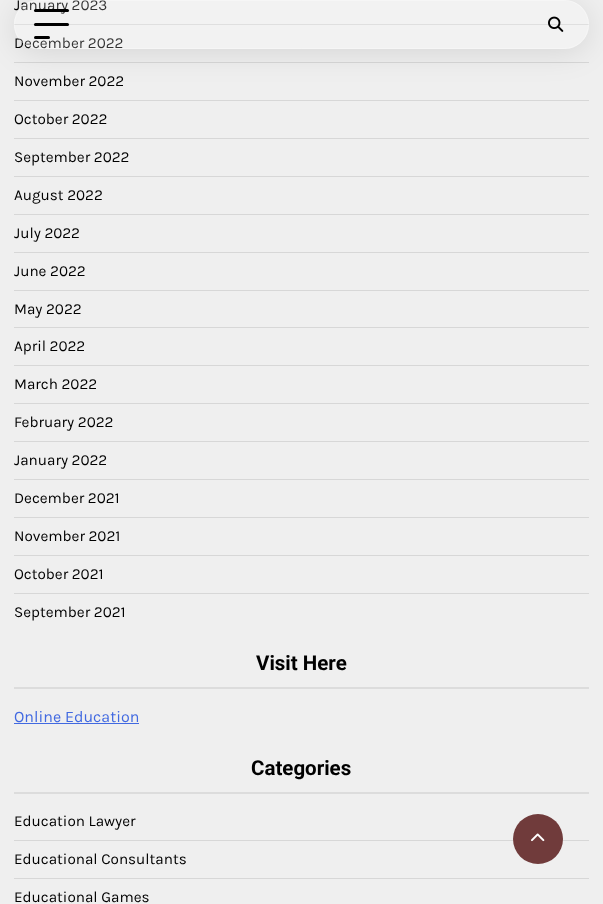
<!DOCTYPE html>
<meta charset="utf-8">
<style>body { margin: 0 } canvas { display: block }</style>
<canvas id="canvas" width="603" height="904"></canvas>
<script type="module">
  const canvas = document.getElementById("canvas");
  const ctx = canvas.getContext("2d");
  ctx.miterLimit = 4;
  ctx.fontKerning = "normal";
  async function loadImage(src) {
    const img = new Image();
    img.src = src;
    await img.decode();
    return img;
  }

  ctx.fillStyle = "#efefef";
  ctx.fillRect(0, 0, 603, 904);
  ctx.fillStyle = "#d7d7d7";
  ctx.fillRect(14, 24, 575, 1);
  ctx.fillRect(14, 62, 575, 1);
  ctx.save();
  ctx.beginPath();
  ctx.moveTo(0, 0);
  ctx.lineTo(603, 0);
  ctx.lineTo(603, 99);
  ctx.lineTo(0, 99);
  ctx.closePath();
  ctx.moveTo(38.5, 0);
  ctx.lineTo(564.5, 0);
  ctx.bezierCurveTo(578, 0, 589, 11, 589, 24.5);
  ctx.bezierCurveTo(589, 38, 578, 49, 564.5, 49);
  ctx.lineTo(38.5, 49);
  ctx.bezierCurveTo(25, 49, 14, 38, 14, 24.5);
  ctx.bezierCurveTo(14, 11, 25, 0, 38.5, 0);
  ctx.closePath();
  ctx.clip("evenodd");
  ctx.fillStyle = "rgba(0, 0, 0, 0.1)";
  ctx.filter = "blur(15px)";
  ctx.beginPath();
  ctx.roundRect(14, 4, 575, 49, 24.5);
  ctx.fill();
  ctx.filter = "none";
  ctx.restore();
  ctx.font = "15.25px Karla";
  ctx.fillStyle = "#000000";
  ctx.fillText("January 2023", 14, 10);
  ctx.fillText("December 2022", 14, 48);
  ctx.fillStyle = "rgba(255, 255, 255, 0.2)";
  ctx.beginPath();
  ctx.roundRect(14, 0, 575, 49, 24.5);
  ctx.fill();
  ctx.beginPath();
  ctx.roundRect(14.5, 0.5, 574, 48, 24);
  ctx.strokeStyle = "rgba(255, 255, 255, 0.3)";
  ctx.stroke();
  ctx.fillStyle = "#000000";
  ctx.beginPath();
  ctx.roundRect(34, 9, 35, 3, 1.5);
  ctx.fill();
  ctx.beginPath();
  ctx.roundRect(34, 23, 35, 3, 1.5);
  ctx.fill();
  ctx.beginPath();
  ctx.roundRect(34, 36, 16, 3, 1.5);
  ctx.fill();
  ctx.drawImage(await loadImage("img1.png"), 548, 16, 16, 16);
  ctx.fillStyle = "#d7d7d7";
  ctx.fillRect(14, 100, 575, 1);
  ctx.fillStyle = "#000000";
  ctx.fillText("November 2022", 14, 86);
  ctx.fillStyle = "#d7d7d7";
  ctx.fillRect(14, 138, 575, 1);
  ctx.fillStyle = "#000000";
  ctx.fillText("October 2022", 14, 124);
  ctx.fillStyle = "#d7d7d7";
  ctx.fillRect(14, 176, 575, 1);
  ctx.fillStyle = "#000000";
  ctx.fillText("September 2022", 14, 162);
  ctx.fillStyle = "#d7d7d7";
  ctx.fillRect(14, 214, 575, 1);
  ctx.fillStyle = "#000000";
  ctx.fillText("August 2022", 14, 200);
  ctx.fillStyle = "#d7d7d7";
  ctx.fillRect(14, 252, 575, 1);
  ctx.fillStyle = "#000000";
  ctx.fillText("July 2022", 14, 238);
  ctx.fillStyle = "#d7d7d7";
  ctx.fillRect(14, 290, 575, 1);
  ctx.fillStyle = "#000000";
  ctx.fillText("June 2022", 14, 276);
  ctx.fillStyle = "#d7d7d7";
  ctx.fillRect(14, 327, 575, 1);
  ctx.fillStyle = "#000000";
  ctx.fillText("May 2022", 14, 314);
  ctx.fillStyle = "#d7d7d7";
  ctx.fillRect(14, 365, 575, 1);
  ctx.fillStyle = "#000000";
  ctx.fillText("April 2022", 14, 351);
  ctx.fillStyle = "#d7d7d7";
  ctx.fillRect(14, 403, 575, 1);
  ctx.fillStyle = "#000000";
  ctx.fillText("March 2022", 14, 389);
  ctx.fillStyle = "#d7d7d7";
  ctx.fillRect(14, 441, 575, 1);
  ctx.fillStyle = "#000000";
  ctx.fillText("February 2022", 14, 427);
  ctx.fillStyle = "#d7d7d7";
  ctx.fillRect(14, 479, 575, 1);
  ctx.fillStyle = "#000000";
  ctx.fillText("January 2022", 14, 465);
  ctx.fillStyle = "#d7d7d7";
  ctx.fillRect(14, 517, 575, 1);
  ctx.fillStyle = "#000000";
  ctx.fillText("December 2021", 14, 503);
  ctx.fillStyle = "#d7d7d7";
  ctx.fillRect(14, 555, 575, 1);
  ctx.fillStyle = "#000000";
  ctx.fillText("November 2021", 14, 541);
  ctx.fillStyle = "#d7d7d7";
  ctx.fillRect(14, 593, 575, 1);
  ctx.fillStyle = "#000000";
  ctx.fillText("October 2021", 14, 579);
  ctx.fillText("September 2021", 14, 617);
  ctx.fillStyle = "#dcdcdc";
  ctx.fillRect(14, 687, 575, 2);
  ctx.font = "bold 20.5px Roboto";
  ctx.fillStyle = "#000000";
  ctx.fillText("Visit Here", 256, 670);
  ctx.font = "16px Karla";
  ctx.fillStyle = "#4169e1";
  ctx.fillText("Online Education", 14, 722);
  ctx.fillRect(14, 723, 125, 1);
  ctx.fillStyle = "#dcdcdc";
  ctx.fillRect(14, 792, 575, 2);
  ctx.font = "bold 20.5px Roboto";
  ctx.fillStyle = "#000000";
  ctx.fillText("Categories", 251, 775);
  ctx.fillStyle = "#d7d7d7";
  ctx.fillRect(14, 840, 575, 1);
  ctx.font = "15.25px Karla";
  ctx.fillStyle = "#000000";
  ctx.fillText("Education Lawyer", 14, 826);
  ctx.fillStyle = "#d7d7d7";
  ctx.fillRect(14, 878, 575, 1);
  ctx.fillStyle = "#000000";
  ctx.fillText("Educational Consultants", 14, 864);
  ctx.fillText("Educational Games", 14, 902);
  ctx.fillStyle = "#703b3b";
  ctx.beginPath();
  ctx.arc(538, 839, 25, 0, Math.PI * 2);
  ctx.fill();
  ctx.drawImage(await loadImage("img2.png"), 531, 833, 14, 9);
</script>
